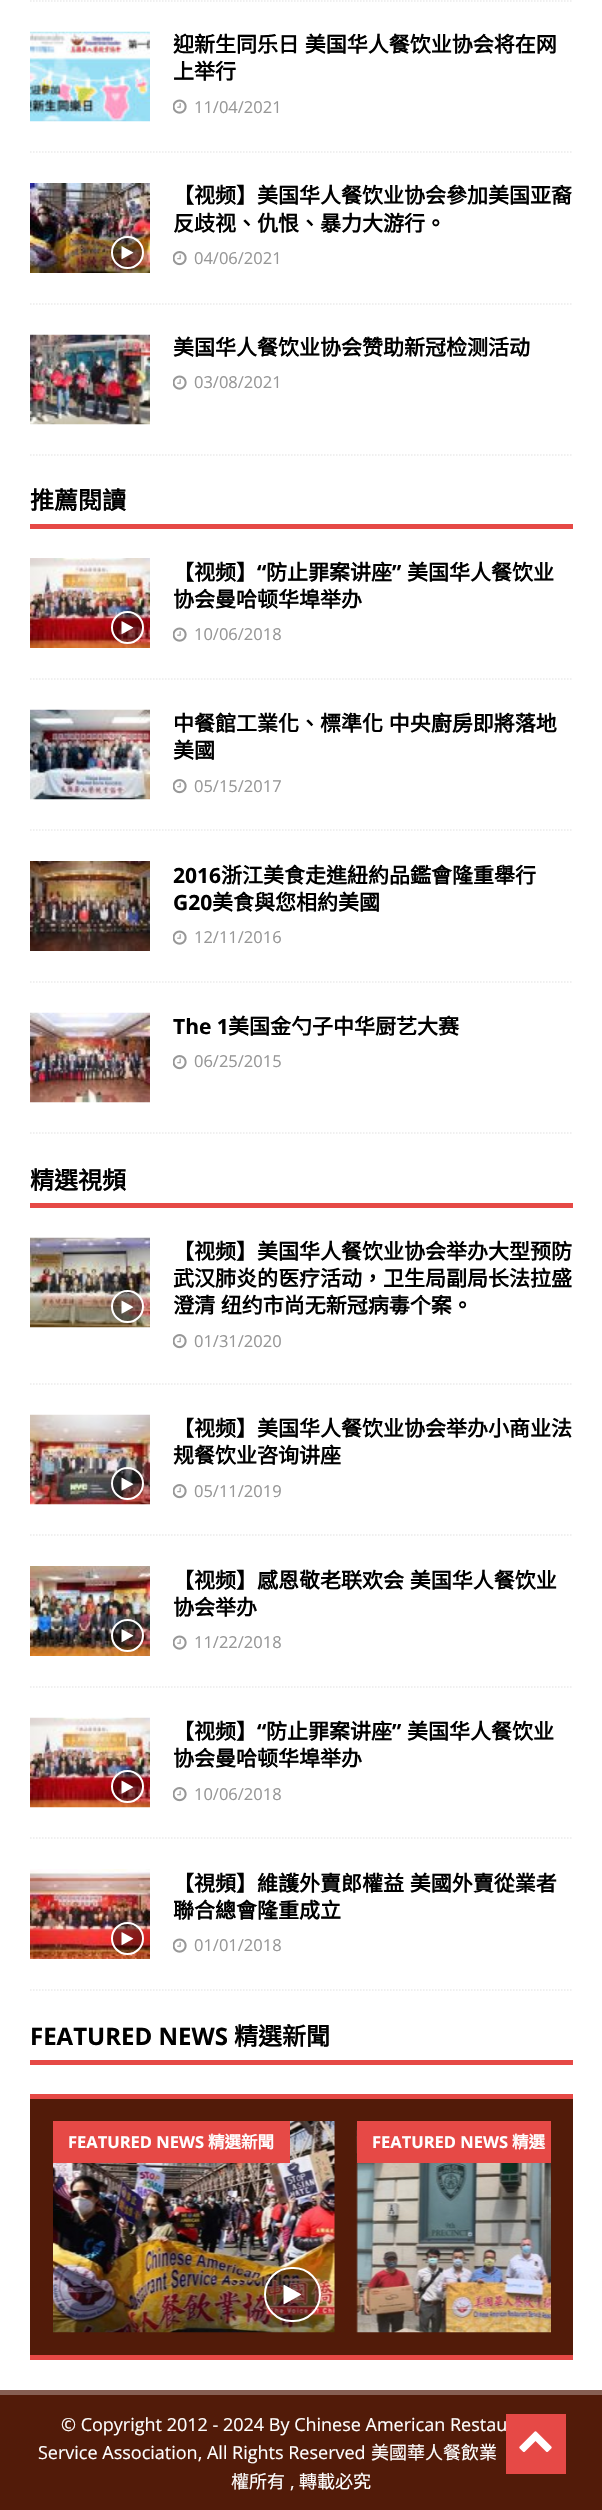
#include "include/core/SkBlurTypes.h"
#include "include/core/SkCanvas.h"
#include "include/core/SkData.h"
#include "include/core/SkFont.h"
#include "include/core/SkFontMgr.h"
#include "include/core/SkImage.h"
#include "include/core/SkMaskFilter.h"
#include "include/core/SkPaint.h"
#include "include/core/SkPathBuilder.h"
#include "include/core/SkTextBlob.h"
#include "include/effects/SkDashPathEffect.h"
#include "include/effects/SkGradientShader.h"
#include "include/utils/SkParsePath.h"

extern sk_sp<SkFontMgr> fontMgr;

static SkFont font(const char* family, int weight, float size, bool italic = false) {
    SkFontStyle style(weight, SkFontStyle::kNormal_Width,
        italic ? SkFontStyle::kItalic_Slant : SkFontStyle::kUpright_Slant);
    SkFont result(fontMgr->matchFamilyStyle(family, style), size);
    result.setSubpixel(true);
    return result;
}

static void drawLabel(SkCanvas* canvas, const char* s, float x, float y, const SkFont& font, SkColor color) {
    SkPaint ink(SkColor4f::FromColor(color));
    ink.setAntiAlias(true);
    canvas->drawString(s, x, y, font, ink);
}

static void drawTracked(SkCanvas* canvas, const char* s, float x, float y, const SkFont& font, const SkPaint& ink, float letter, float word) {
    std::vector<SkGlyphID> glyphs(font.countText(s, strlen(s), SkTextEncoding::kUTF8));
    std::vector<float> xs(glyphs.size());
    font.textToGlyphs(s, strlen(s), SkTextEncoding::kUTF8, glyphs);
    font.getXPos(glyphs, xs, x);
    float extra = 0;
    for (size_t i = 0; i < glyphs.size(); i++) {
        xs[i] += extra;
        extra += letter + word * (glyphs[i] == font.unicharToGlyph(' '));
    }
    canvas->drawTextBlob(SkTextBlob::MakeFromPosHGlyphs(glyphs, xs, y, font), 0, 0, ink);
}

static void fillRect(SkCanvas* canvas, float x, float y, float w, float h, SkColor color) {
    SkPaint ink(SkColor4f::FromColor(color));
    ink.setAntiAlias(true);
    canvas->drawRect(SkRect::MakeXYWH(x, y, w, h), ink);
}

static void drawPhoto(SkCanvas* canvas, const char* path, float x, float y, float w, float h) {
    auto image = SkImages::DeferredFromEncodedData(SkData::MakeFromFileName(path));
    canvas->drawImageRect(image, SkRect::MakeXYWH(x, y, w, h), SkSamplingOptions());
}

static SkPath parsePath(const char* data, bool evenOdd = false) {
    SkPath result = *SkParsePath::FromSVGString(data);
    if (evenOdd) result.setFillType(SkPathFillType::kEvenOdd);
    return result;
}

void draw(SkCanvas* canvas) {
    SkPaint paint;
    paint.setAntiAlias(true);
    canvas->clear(0xFFFFFFFF);
    paint.setStroke(true);
    paint.setStrokeWidth(1.5f);
    paint.setColor(0xFFEBEBEB);
    paint.setPathEffect(SkDashPathEffect::Make({{1.5f, 1.5f}}, 0));
    canvas->drawPath(parsePath("M30 1H573"), paint);
    paint.setPathEffect(nullptr);
    paint.setPathEffect(SkDashPathEffect::Make({{1.5f, 1.5f}}, 0));
    canvas->drawPath(parsePath("M30 152H573"), paint);
    paint.setPathEffect(nullptr);
    drawPhoto(canvas, "assets/img1.png", 30, 31, 120, 91);
    SkFont font1 = font("Noto Sans CJK TC", 700, 21);
    paint.setStroke(false);
    paint.setColor(0xFF000000);
    drawTracked(canvas, "迎新生同乐日 美国华人餐饮业协会将在网", 173, 52, font1, paint, 0, 1);
    drawLabel(canvas, "上举行", 173, 79, font1, 0xFF000000);
    drawPhoto(canvas, "assets/img2.png", 173, 99, 14, 15);
    SkFont font2 = font("Open Sans", 400, 16.5f);
    drawLabel(canvas, "11/04/2021", 194, 113, font2, 0xFF979797);
    paint.setStroke(true);
    paint.setColor(0xFFEBEBEB);
    paint.setPathEffect(SkDashPathEffect::Make({{1.5f, 1.5f}}, 0));
    canvas->drawPath(parsePath("M30 304H573"), paint);
    paint.setPathEffect(nullptr);
    drawPhoto(canvas, "assets/img3.png", 30, 183, 120, 90);
    paint.setStroke(false);
    paint.setColor(0x66000000);
    canvas->drawCircle(127.5f, 252.5f, 15.5f, paint);
    paint.setStroke(true);
    paint.setStrokeWidth(2);
    paint.setColor(0xFFFFFFFF);
    canvas->drawCircle(127.5f, 252.5f, 15.5f, paint);
    drawPhoto(canvas, "assets/img4.png", 121, 246, 13, 14);
    drawLabel(canvas, "【视频】美国华人餐饮业协会參加美国亚裔", 173, 203, font1, 0xFF000000);
    drawLabel(canvas, "反歧视、仇恨、暴力大游行。", 173, 231, font1, 0xFF000000);
    drawPhoto(canvas, "assets/img5.png", 173, 251, 14, 15);
    drawLabel(canvas, "04/06/2021", 194, 264, font2, 0xFF979797);
    paint.setStrokeWidth(1.5f);
    paint.setColor(0xFFEBEBEB);
    paint.setPathEffect(SkDashPathEffect::Make({{1.5f, 1.5f}}, 0));
    canvas->drawPath(parsePath("M30 455H573"), paint);
    paint.setPathEffect(nullptr);
    drawPhoto(canvas, "assets/img6.png", 30, 334, 120, 91);
    drawLabel(canvas, "美国华人餐饮业协会赞助新冠检测活动", 173, 355, font1, 0xFF000000);
    drawPhoto(canvas, "assets/img2.png", 173, 375, 14, 15);
    drawLabel(canvas, "03/08/2021", 194, 388, font2, 0xFF979797);
    fillRect(canvas, 30, 524, 543, 5, 0xFFE64946);
    SkFont font3 = font("Noto Sans CJK TC", 700, 24);
    drawLabel(canvas, "推薦閱讀", 30, 509, font3, 0xFF000000);
    paint.setPathEffect(SkDashPathEffect::Make({{1.5f, 1.5f}}, 0));
    canvas->drawPath(parsePath("M30 679H573"), paint);
    paint.setPathEffect(nullptr);
    drawPhoto(canvas, "assets/img7.png", 30, 558, 120, 90);
    paint.setStroke(false);
    paint.setColor(0x66000000);
    canvas->drawCircle(127.5f, 627.5f, 15.5f, paint);
    paint.setStroke(true);
    paint.setStrokeWidth(2);
    paint.setColor(0xFFFFFFFF);
    canvas->drawCircle(127.5f, 627.5f, 15.5f, paint);
    drawPhoto(canvas, "assets/img8.png", 121, 621, 13, 14);
    drawLabel(canvas, "【视频】", 173, 580, font1, 0xFF000000);
    SkFont font4 = font("Open Sans", 700, 21);
    drawLabel(canvas, "“", 257, 580, font4, 0xFF000000);
    drawLabel(canvas, "防止罪案讲座", 266, 580, font1, 0xFF000000);
    drawLabel(canvas, "”", 392, 580, font4, 0xFF000000);
    drawLabel(canvas, "美国华人餐饮业", 407, 580, font1, 0xFF000000);
    drawLabel(canvas, "协会曼哈顿华埠举办", 173, 607, font1, 0xFF000000);
    drawPhoto(canvas, "assets/img2.png", 173, 627, 14, 15);
    drawLabel(canvas, "10/06/2018", 194, 640, font2, 0xFF979797);
    paint.setStrokeWidth(1.5f);
    paint.setColor(0xFFEBEBEB);
    paint.setPathEffect(SkDashPathEffect::Make({{1.5f, 1.5f}}, 0));
    canvas->drawPath(parsePath("M30 830H573"), paint);
    paint.setPathEffect(nullptr);
    drawPhoto(canvas, "assets/img9.png", 30, 709, 120, 91);
    paint.setStroke(false);
    paint.setColor(0xFF000000);
    drawTracked(canvas, "中餐館工業化、標準化 中央廚房即將落地", 173, 731, font1, paint, 0, 1);
    drawLabel(canvas, "美國", 173, 758, font1, 0xFF000000);
    drawPhoto(canvas, "assets/img5.png", 173, 779, 14, 15);
    drawLabel(canvas, "05/15/2017", 194, 792, font2, 0xFF979797);
    paint.setStroke(true);
    paint.setColor(0xFFEBEBEB);
    paint.setPathEffect(SkDashPathEffect::Make({{1.5f, 1.5f}}, 0));
    canvas->drawPath(parsePath("M30 982H573"), paint);
    paint.setPathEffect(nullptr);
    drawPhoto(canvas, "assets/img10.png", 30, 861, 120, 90);
    drawLabel(canvas, "2016", 173, 883, font4, 0xFF000000);
    drawLabel(canvas, "浙江美食走進紐約品鑑會隆重舉行", 221, 883, font1, 0xFF000000);
    drawLabel(canvas, "G20", 173, 910, font4, 0xFF000000);
    drawLabel(canvas, "美食與您相約美國", 212, 910, font1, 0xFF000000);
    drawPhoto(canvas, "assets/img2.png", 173, 930, 14, 15);
    drawLabel(canvas, "12/11/2016", 194, 943, font2, 0xFF979797);
    paint.setPathEffect(SkDashPathEffect::Make({{1.5f, 1.5f}}, 0));
    canvas->drawPath(parsePath("M30 1133H573"), paint);
    paint.setPathEffect(nullptr);
    drawPhoto(canvas, "assets/img11.png", 30, 1012, 120, 91);
    drawLabel(canvas, "The 1", 173, 1034, font4, 0xFF000000);
    drawLabel(canvas, "美国金勺子中华厨艺大赛", 228, 1034, font1, 0xFF000000);
    drawPhoto(canvas, "assets/img5.png", 173, 1055, 14, 15);
    drawLabel(canvas, "06/25/2015", 194, 1067, font2, 0xFF979797);
    fillRect(canvas, 30, 1203, 543, 5, 0xFFE64946);
    drawLabel(canvas, "精選視頻", 30, 1189, font3, 0xFF000000);
    paint.setPathEffect(SkDashPathEffect::Make({{1.5f, 1.5f}}, 0));
    canvas->drawPath(parsePath("M30 1384H573"), paint);
    paint.setPathEffect(nullptr);
    drawPhoto(canvas, "assets/img12.png", 30, 1237, 120, 91);
    paint.setStroke(false);
    paint.setColor(0x66000000);
    canvas->drawCircle(127.5f, 1306.5f, 15.5f, paint);
    paint.setStroke(true);
    paint.setStrokeWidth(2);
    paint.setColor(0xFFFFFFFF);
    canvas->drawCircle(127.5f, 1306.5f, 15.5f, paint);
    drawPhoto(canvas, "assets/img13.png", 121, 1300, 13, 14);
    drawLabel(canvas, "【视频】美国华人餐饮业协会举办大型预防", 173, 1259, font1, 0xFF000000);
    drawLabel(canvas, "武汉肺炎的医疗活动，卫生局副局长法拉盛", 173, 1286, font1, 0xFF000000);
    paint.setStroke(false);
    paint.setColor(0xFF000000);
    drawTracked(canvas, "澄清 纽约市尚无新冠病毒个案。", 173, 1313, font1, paint, 0, 1);
    drawPhoto(canvas, "assets/img5.png", 173, 1334, 14, 15);
    drawLabel(canvas, "01/31/2020", 194, 1347, font2, 0xFF979797);
    paint.setStroke(true);
    paint.setStrokeWidth(1.5f);
    paint.setColor(0xFFEBEBEB);
    paint.setPathEffect(SkDashPathEffect::Make({{1.5f, 1.5f}}, 0));
    canvas->drawPath(parsePath("M30 1535H573"), paint);
    paint.setPathEffect(nullptr);
    drawPhoto(canvas, "assets/img14.png", 30, 1414, 120, 91);
    paint.setStroke(false);
    paint.setColor(0x66000000);
    canvas->drawCircle(127.5f, 1483.5f, 15.5f, paint);
    paint.setStroke(true);
    paint.setStrokeWidth(2);
    paint.setColor(0xFFFFFFFF);
    canvas->drawCircle(127.5f, 1483.5f, 15.5f, paint);
    drawPhoto(canvas, "assets/img15.png", 121, 1477, 13, 14);
    drawLabel(canvas, "【视频】美国华人餐饮业协会举办小商业法", 173, 1436, font1, 0xFF000000);
    drawLabel(canvas, "规餐饮业咨询讲座", 173, 1463, font1, 0xFF000000);
    drawPhoto(canvas, "assets/img5.png", 173, 1484, 14, 15);
    drawLabel(canvas, "05/11/2019", 194, 1497, font2, 0xFF979797);
    paint.setStrokeWidth(1.5f);
    paint.setColor(0xFFEBEBEB);
    paint.setPathEffect(SkDashPathEffect::Make({{1.5f, 1.5f}}, 0));
    canvas->drawPath(parsePath("M30 1687H573"), paint);
    paint.setPathEffect(nullptr);
    drawPhoto(canvas, "assets/img16.png", 30, 1566, 120, 90);
    paint.setStroke(false);
    paint.setColor(0x66000000);
    canvas->drawCircle(127.5f, 1635.5f, 15.5f, paint);
    paint.setStroke(true);
    paint.setStrokeWidth(2);
    paint.setColor(0xFFFFFFFF);
    canvas->drawCircle(127.5f, 1635.5f, 15.5f, paint);
    drawPhoto(canvas, "assets/img17.png", 121, 1629, 13, 14);
    paint.setStroke(false);
    paint.setColor(0xFF000000);
    drawTracked(canvas, "【视频】感恩敬老联欢会 美国华人餐饮业", 173, 1588, font1, paint, 0, 1);
    drawLabel(canvas, "协会举办", 173, 1615, font1, 0xFF000000);
    drawPhoto(canvas, "assets/img2.png", 173, 1635, 14, 15);
    drawLabel(canvas, "11/22/2018", 194, 1648, font2, 0xFF979797);
    paint.setStroke(true);
    paint.setStrokeWidth(1.5f);
    paint.setColor(0xFFEBEBEB);
    paint.setPathEffect(SkDashPathEffect::Make({{1.5f, 1.5f}}, 0));
    canvas->drawPath(parsePath("M30 1838H573"), paint);
    paint.setPathEffect(nullptr);
    drawPhoto(canvas, "assets/img18.png", 30, 1717, 120, 91);
    paint.setStroke(false);
    paint.setColor(0x66000000);
    canvas->drawCircle(127.5f, 1786.5f, 15.5f, paint);
    paint.setStroke(true);
    paint.setStrokeWidth(2);
    paint.setColor(0xFFFFFFFF);
    canvas->drawCircle(127.5f, 1786.5f, 15.5f, paint);
    drawPhoto(canvas, "assets/img19.png", 121, 1780, 13, 14);
    drawLabel(canvas, "【视频】", 173, 1739, font1, 0xFF000000);
    drawLabel(canvas, "“", 257, 1739, font4, 0xFF000000);
    drawLabel(canvas, "防止罪案讲座", 266, 1739, font1, 0xFF000000);
    drawLabel(canvas, "”", 392, 1739, font4, 0xFF000000);
    drawLabel(canvas, "美国华人餐饮业", 407, 1739, font1, 0xFF000000);
    drawLabel(canvas, "协会曼哈顿华埠举办", 173, 1766, font1, 0xFF000000);
    drawPhoto(canvas, "assets/img5.png", 173, 1787, 14, 15);
    drawLabel(canvas, "10/06/2018", 194, 1800, font2, 0xFF979797);
    paint.setStrokeWidth(1.5f);
    paint.setColor(0xFFEBEBEB);
    paint.setPathEffect(SkDashPathEffect::Make({{1.5f, 1.5f}}, 0));
    canvas->drawPath(parsePath("M30 1990H573"), paint);
    paint.setPathEffect(nullptr);
    drawPhoto(canvas, "assets/img20.png", 30, 1869, 120, 90);
    paint.setStroke(false);
    paint.setColor(0x66000000);
    canvas->drawCircle(127.5f, 1938.5f, 15.5f, paint);
    paint.setStroke(true);
    paint.setStrokeWidth(2);
    paint.setColor(0xFFFFFFFF);
    canvas->drawCircle(127.5f, 1938.5f, 15.5f, paint);
    drawPhoto(canvas, "assets/img21.png", 121, 1932, 13, 14);
    paint.setStroke(false);
    paint.setColor(0xFF000000);
    drawTracked(canvas, "【視頻】維護外賣郎權益 美國外賣從業者", 173, 1891, font1, paint, 0, 1);
    drawLabel(canvas, "聯合總會隆重成立", 173, 1918, font1, 0xFF000000);
    drawPhoto(canvas, "assets/img2.png", 173, 1938, 14, 15);
    drawLabel(canvas, "01/01/2018", 194, 1951, font2, 0xFF979797);
    fillRect(canvas, 30, 2060, 543, 5, 0xFFE64946);
    SkFont font5 = font("Open Sans", 700, 24);
    drawLabel(canvas, "FEATURED NEWS", 30, 2045, font5, 0xFF000000);
    drawLabel(canvas, "精選新聞", 234, 2045, font3, 0xFF000000);
    fillRect(canvas, 30, 2099, 543, 256, 0xFF521B09);
    fillRect(canvas, 30, 2094, 543, 5, 0xFFE64946);
    fillRect(canvas, 30, 2355, 543, 5, 0xFFE64946);
    drawPhoto(canvas, "assets/img22.png", 53, 2121, 282, 212);
    paint.setColor(0x66000000);
    canvas->drawRoundRect(SkRect::MakeXYWH(265, 2268, 55, 53), 26.5f, 26.5f, paint);
    paint.setStroke(true);
    paint.setColor(0xFFFFFFFF);
    canvas->drawRoundRect(SkRect::MakeXYWH(265, 2268, 55, 53), 26.5f, 26.5f, paint);
    drawPhoto(canvas, "assets/img23.png", 283, 2284, 19, 21);
    fillRect(canvas, 53, 2121, 237, 42, 0xFFE64946);
    SkFont font6 = font("Open Sans", 700, 16.5f);
    drawLabel(canvas, "FEATURED NEWS", 68, 2148, font6, 0xFFFFFFFF);
    SkFont font7 = font("Noto Sans CJK TC", 700, 16.5f);
    drawLabel(canvas, "精選新聞", 208, 2148, font7, 0xFFFFFFFF);
    drawPhoto(canvas, "assets/img24.png", 356, 2121, 195, 212);
    fillRect(canvas, 357, 2121, 194, 42, 0xFFE64946);
    drawLabel(canvas, "FEATURED NEWS", 372, 2148, font6, 0xFFFFFFFF);
    drawLabel(canvas, "精選", 512, 2148, font7, 0xFFFFFFFF);
    fillRect(canvas, 0, 2395, 602, 115, 0xFF521B09);
    fillRect(canvas, 0, 2390, 602, 5, 0xFF865F53);
    SkFont font8 = font("Open Sans", 400, 18);
    drawLabel(canvas, "© Copyright 2012 - 2024 By Chinese American Restau", 61, 2431, font8, 0xFFFFFFFF);
    drawLabel(canvas, "Service Association, All Rights Reserved", 38, 2459, font8, 0xFFFFFFFF);
    SkFont font9 = font("Noto Sans CJK TC", 400, 18);
    drawLabel(canvas, "美國華人餐飲業", 371, 2459, font9, 0xFFFFFFFF);
    drawLabel(canvas, "權所有", 231, 2488, font9, 0xFFFFFFFF);
    drawLabel(canvas, ",", 290, 2488, font8, 0xFFFFFFFF);
    drawLabel(canvas, "轉載必究", 299, 2488, font9, 0xFFFFFFFF);
    fillRect(canvas, 506, 2414, 60, 60, 0xFFE64946);
    drawPhoto(canvas, "assets/img25.png", 519, 2431, 33, 21);
}
